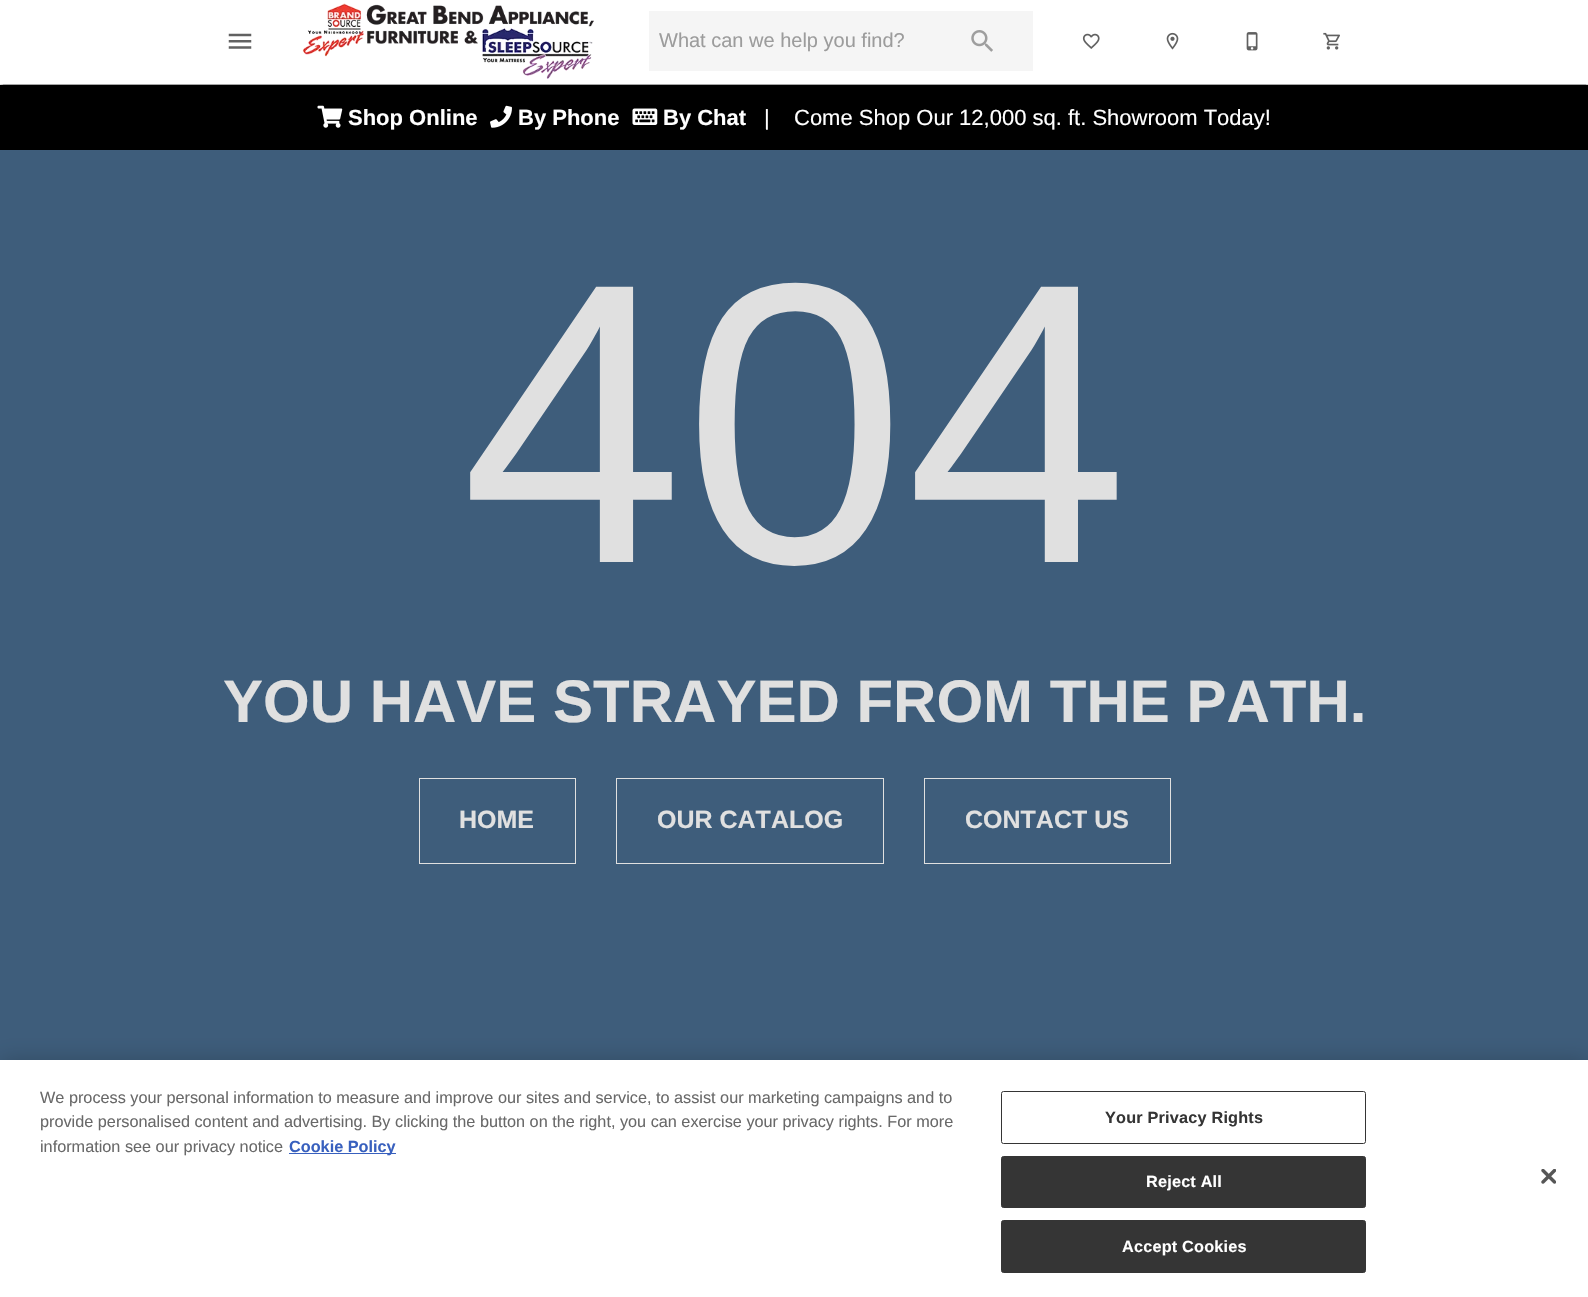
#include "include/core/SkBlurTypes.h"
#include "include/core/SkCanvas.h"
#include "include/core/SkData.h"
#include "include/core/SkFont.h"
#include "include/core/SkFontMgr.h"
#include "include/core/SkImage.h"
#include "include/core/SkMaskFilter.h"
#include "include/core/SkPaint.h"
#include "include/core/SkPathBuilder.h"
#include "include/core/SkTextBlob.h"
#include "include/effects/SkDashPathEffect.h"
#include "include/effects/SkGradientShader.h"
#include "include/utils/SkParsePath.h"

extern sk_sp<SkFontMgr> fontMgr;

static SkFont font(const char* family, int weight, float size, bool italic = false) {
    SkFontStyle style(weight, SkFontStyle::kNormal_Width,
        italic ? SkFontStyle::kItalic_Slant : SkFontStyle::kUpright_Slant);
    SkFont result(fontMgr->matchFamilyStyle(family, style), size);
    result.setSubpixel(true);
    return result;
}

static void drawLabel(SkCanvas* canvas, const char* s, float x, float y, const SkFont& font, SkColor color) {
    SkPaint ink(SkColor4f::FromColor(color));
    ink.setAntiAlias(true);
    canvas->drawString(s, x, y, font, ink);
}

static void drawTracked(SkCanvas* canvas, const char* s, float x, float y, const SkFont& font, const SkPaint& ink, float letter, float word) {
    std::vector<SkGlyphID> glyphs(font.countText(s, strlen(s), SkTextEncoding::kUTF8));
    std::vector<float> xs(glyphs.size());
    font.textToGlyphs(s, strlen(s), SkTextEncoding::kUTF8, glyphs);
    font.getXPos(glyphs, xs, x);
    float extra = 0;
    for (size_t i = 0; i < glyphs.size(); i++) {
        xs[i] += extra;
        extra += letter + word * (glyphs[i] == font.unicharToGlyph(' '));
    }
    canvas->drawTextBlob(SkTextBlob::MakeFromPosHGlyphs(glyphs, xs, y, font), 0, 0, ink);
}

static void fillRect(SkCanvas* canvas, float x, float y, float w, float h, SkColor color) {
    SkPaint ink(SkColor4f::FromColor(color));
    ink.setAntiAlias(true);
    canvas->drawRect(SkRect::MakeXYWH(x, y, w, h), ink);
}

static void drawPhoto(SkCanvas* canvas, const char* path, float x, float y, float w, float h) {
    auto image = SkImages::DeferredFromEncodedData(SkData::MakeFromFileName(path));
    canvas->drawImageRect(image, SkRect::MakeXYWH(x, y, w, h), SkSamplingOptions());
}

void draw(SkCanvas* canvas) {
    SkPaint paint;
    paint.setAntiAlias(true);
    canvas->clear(0xFFFFFFFF);
    fillRect(canvas, 0, 85, 1588, 65, 0xFF000000);
    paint.setColor(0x1F000000);
    paint.setMaskFilter(SkMaskFilter::MakeBlur(kNormal_SkBlurStyle, 3));
    canvas->drawRect(SkRect::MakeXYWH(0, 0, 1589, 85), paint);
    paint.setMaskFilter(nullptr);
    paint.setColor(0x24000000);
    paint.setMaskFilter(SkMaskFilter::MakeBlur(kNormal_SkBlurStyle, 1));
    canvas->drawRect(SkRect::MakeXYWH(0, 1, 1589, 85), paint);
    paint.setMaskFilter(nullptr);
    paint.setColor(0x33000000);
    paint.setMaskFilter(SkMaskFilter::MakeBlur(kNormal_SkBlurStyle, 0.5f));
    canvas->drawRect(SkRect::MakeXYWH(3, 5, 1583, 80), paint);
    paint.setMaskFilter(nullptr);
    fillRect(canvas, 0, 0, 1588, 84, 0xFFFFFFFF);
    drawPhoto(canvas, "assets/img1.png", 228, 33, 24, 16);
    drawPhoto(canvas, "assets/img2.png", 302, 3, 292, 76);
    fillRect(canvas, 649, 11, 384, 60, 0xFFF5F5F5);
    SkFont font1 = font("Liberation Sans", 400, 20);
    drawLabel(canvas, "What can we help you find?", 659, 47, font1, 0xFF9C9C9C);
    drawPhoto(canvas, "assets/img3.png", 971, 30, 22, 22);
    drawPhoto(canvas, "assets/img4.png", 1082, 33, 18, 16);
    drawPhoto(canvas, "assets/img5.png", 1166, 32, 13, 18);
    drawPhoto(canvas, "assets/img6.png", 1246, 32, 12, 19);
    drawPhoto(canvas, "assets/img7.png", 1323, 32, 17, 18);
    drawPhoto(canvas, "assets/img8.png", 317, 105, 26, 23);
    SkFont font2 = font("Liberation Sans", 700, 22);
    drawLabel(canvas, "Shop Online", 348, 125, font2, 0xFFFFFFFF);
    drawPhoto(canvas, "assets/img9.png", 490, 105, 22, 23);
    drawLabel(canvas, "By Phone", 518, 125, font2, 0xFFFFFFFF);
    drawPhoto(canvas, "assets/img10.png", 632, 108, 26, 17);
    drawLabel(canvas, "By Chat", 663, 125, font2, 0xFFFFFFFF);
    SkFont font3 = font("Liberation Sans", 400, 22);
    drawLabel(canvas, "|", 764, 125, font3, 0xFFFFFFFF);
    drawLabel(canvas, "Come Shop Our 12,000 sq. ft. Showroom Today!", 794, 125, font3, 0xFFFFFFFF);
    fillRect(canvas, 0, 150, 1588, 910, 0xFF3E5D7B);
    SkFont font4 = font("Liberation Sans", 400, 400);
    drawLabel(canvas, "404", 461, 562, font4, 0xFFE0E0E0);
    SkFont font5 = font("Liberation Sans", 700, 60);
    drawLabel(canvas, "YOU HAVE STRAYED FROM THE PATH.", 223, 722, font5, 0xFFE0E0E0);
    paint.setStroke(true);
    paint.setStrokeWidth(1);
    paint.setColor(0xFFE0E0E0);
    canvas->drawRect(SkRect::MakeXYWH(419.5f, 778.5f, 156, 85), paint);
    SkFont font6 = font("Liberation Sans", 700, 25);
    drawLabel(canvas, "HOME", 459, 828, font6, 0xFFE0E0E0);
    canvas->drawRect(SkRect::MakeXYWH(616.5f, 778.5f, 267, 85), paint);
    drawLabel(canvas, "OUR CATALOG", 657, 828, font6, 0xFFE0E0E0);
    canvas->drawRect(SkRect::MakeXYWH(924.5f, 778.5f, 246, 85), paint);
    drawLabel(canvas, "CONTACT US", 965, 828, font6, 0xFFE0E0E0);
    paint.setStroke(false);
    paint.setColor(0x33000000);
    paint.setMaskFilter(SkMaskFilter::MakeBlur(kNormal_SkBlurStyle, 11));
    canvas->drawRect(SkRect::MakeXYWH(0, 1060, 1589, 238), paint);
    paint.setMaskFilter(nullptr);
    fillRect(canvas, 0, 1060, 1588, 237, 0xFFFFFFFF);
    SkFont font7 = font("Liberation Sans", 400, 16.25f);
    drawLabel(canvas, "We process your personal information to measure and improve our sites and service, to assist our marketing campaigns and to", 40, 1103, font7, 0xFF696969);
    drawLabel(canvas, "provide personalised content and advertising. By clicking the button on the right, you can exercise your privacy rights. For more", 40, 1127, font7, 0xFF696969);
    drawLabel(canvas, "information see our privacy notice", 40, 1152, font7, 0xFF696969);
    fillRect(canvas, 289, 1153, 107, 1, 0xFF3860BE);
    SkFont font8 = font("Liberation Sans", 700, 16.25f);
    drawLabel(canvas, "Cookie Policy", 289, 1152, font8, 0xFF3860BE);
    paint.setStroke(true);
    paint.setColor(0xFF353535);
    canvas->drawRoundRect(SkRect::MakeXYWH(1001.5f, 1091.5f, 364, 52), 2, 2, paint);
    paint.setStroke(false);
    drawTracked(canvas, "Your Privacy Rights", 1105, 1123, font8, paint, 0.2f, 0);
    canvas->drawRoundRect(SkRect::MakeXYWH(1001.5f, 1156.5f, 364, 51), 2, 2, paint);
    paint.setStroke(true);
    canvas->drawRoundRect(SkRect::MakeXYWH(1001.5f, 1156.5f, 364, 51), 2, 2, paint);
    paint.setStroke(false);
    paint.setColor(0xFFFFFFFF);
    drawTracked(canvas, "Reject All", 1146, 1187, font8, paint, 0.2f, 0);
    paint.setColor(0xFF353535);
    canvas->drawRoundRect(SkRect::MakeXYWH(1001.5f, 1220.5f, 364, 52), 2, 2, paint);
    paint.setStroke(true);
    canvas->drawRoundRect(SkRect::MakeXYWH(1001.5f, 1220.5f, 364, 52), 2, 2, paint);
    paint.setStroke(false);
    paint.setColor(0xFFFFFFFF);
    drawTracked(canvas, "Accept Cookies", 1122, 1252, font8, paint, 0.2f, 0);
    drawPhoto(canvas, "assets/img11.png", 1541, 1169, 15, 15);
}
